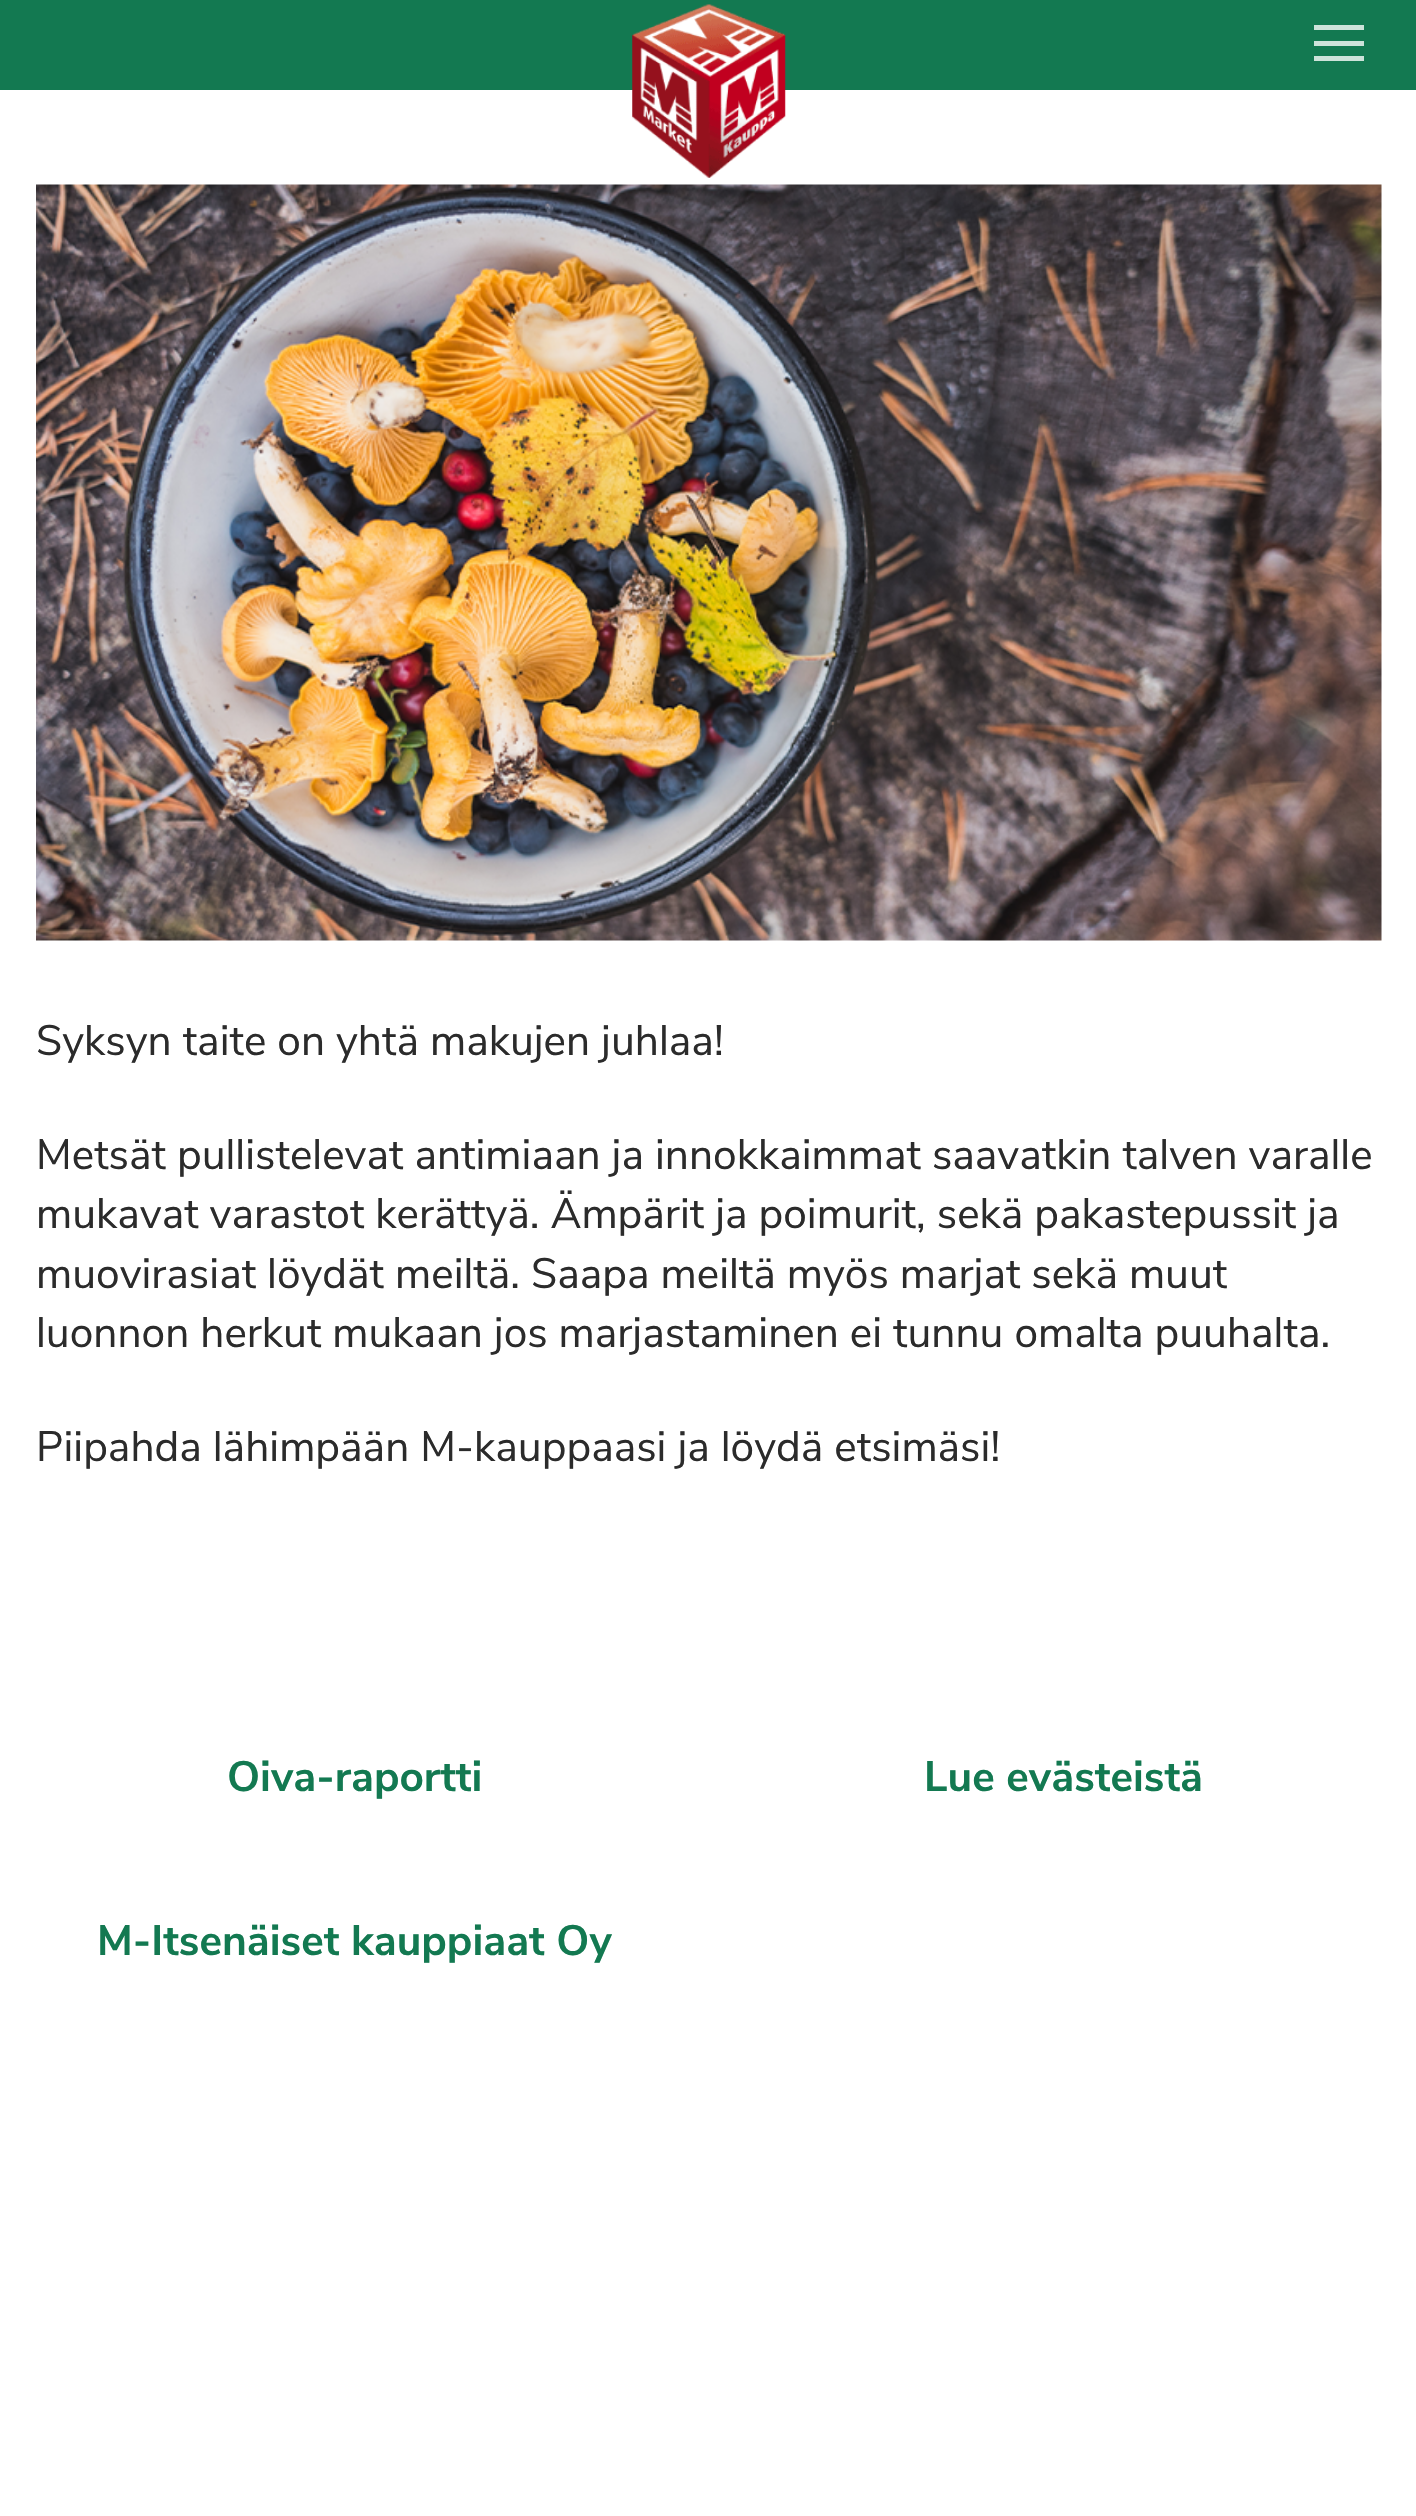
#include "include/core/SkBlurTypes.h"
#include "include/core/SkCanvas.h"
#include "include/core/SkData.h"
#include "include/core/SkFont.h"
#include "include/core/SkFontMgr.h"
#include "include/core/SkImage.h"
#include "include/core/SkMaskFilter.h"
#include "include/core/SkPaint.h"
#include "include/core/SkPathBuilder.h"
#include "include/core/SkTextBlob.h"
#include "include/effects/SkDashPathEffect.h"
#include "include/effects/SkGradientShader.h"
#include "include/utils/SkParsePath.h"

extern sk_sp<SkFontMgr> fontMgr;

static SkFont font(const char* family, int weight, float size, bool italic = false) {
    SkFontStyle style(weight, SkFontStyle::kNormal_Width,
        italic ? SkFontStyle::kItalic_Slant : SkFontStyle::kUpright_Slant);
    SkFont result(fontMgr->matchFamilyStyle(family, style), size);
    result.setSubpixel(true);
    return result;
}

static void drawLabel(SkCanvas* canvas, const char* s, float x, float y, const SkFont& font, SkColor color) {
    SkPaint ink(SkColor4f::FromColor(color));
    ink.setAntiAlias(true);
    canvas->drawString(s, x, y, font, ink);
}

static void fillRect(SkCanvas* canvas, float x, float y, float w, float h, SkColor color) {
    SkPaint ink(SkColor4f::FromColor(color));
    ink.setAntiAlias(true);
    canvas->drawRect(SkRect::MakeXYWH(x, y, w, h), ink);
}

static void drawPhoto(SkCanvas* canvas, const char* path, float x, float y, float w, float h) {
    auto image = SkImages::DeferredFromEncodedData(SkData::MakeFromFileName(path));
    canvas->drawImageRect(image, SkRect::MakeXYWH(x, y, w, h), SkSamplingOptions());
}

void draw(SkCanvas* canvas) {
    SkPaint paint;
    paint.setAntiAlias(true);
    canvas->clear(0xFFFFFFFF);
    fillRect(canvas, 0, 0, 1416, 90, 0xFF137951);
    drawPhoto(canvas, "assets/img1.png", 632, 4, 154, 174);
    fillRect(canvas, 1314, 41, 50, 5, 0xFFCDE3DA);
    fillRect(canvas, 1314, 25, 50, 5, 0xFFCDE3DA);
    fillRect(canvas, 1314, 56, 50, 5, 0xFFCDE3DA);
    drawPhoto(canvas, "assets/img2.png", 36, 184, 1346, 757);
    SkFont font1 = font("Nunito Sans", 400, 42.5f);
    drawLabel(canvas, "Syksyn taite on yhtä makujen juhlaa!", 36, 1055, font1, 0xFF2B2B2B);
    drawLabel(canvas, "Metsät pullistelevat antimiaan ja innokkaimmat saavatkin talven varalle", 36, 1169, font1, 0xFF2B2B2B);
    drawLabel(canvas, "mukavat varastot kerättyä. Ämpärit ja poimurit, sekä pakastepussit ja", 36, 1228, font1, 0xFF2B2B2B);
    drawLabel(canvas, "muovirasiat löydät meiltä. Saapa meiltä myös marjat sekä muut", 36, 1288, font1, 0xFF2B2B2B);
    drawLabel(canvas, "luonnon herkut mukaan jos marjastaminen ei tunnu omalta puuhalta.", 36, 1347, font1, 0xFF2B2B2B);
    drawLabel(canvas, "Piipahda lähimpään M-kauppaasi ja löydä etsimäsi!", 36, 1461, font1, 0xFF2B2B2B);
    SkFont font2 = font("Nunito Sans", 700, 42.5f);
    drawLabel(canvas, "Oiva-raportti", 227, 1791, font2, 0xFF137951);
    drawLabel(canvas, "Lue evästeistä", 924, 1791, font2, 0xFF137951);
    drawLabel(canvas, "M-Itsenäiset kauppiaat Oy", 97, 1955, font2, 0xFF137951);
}
